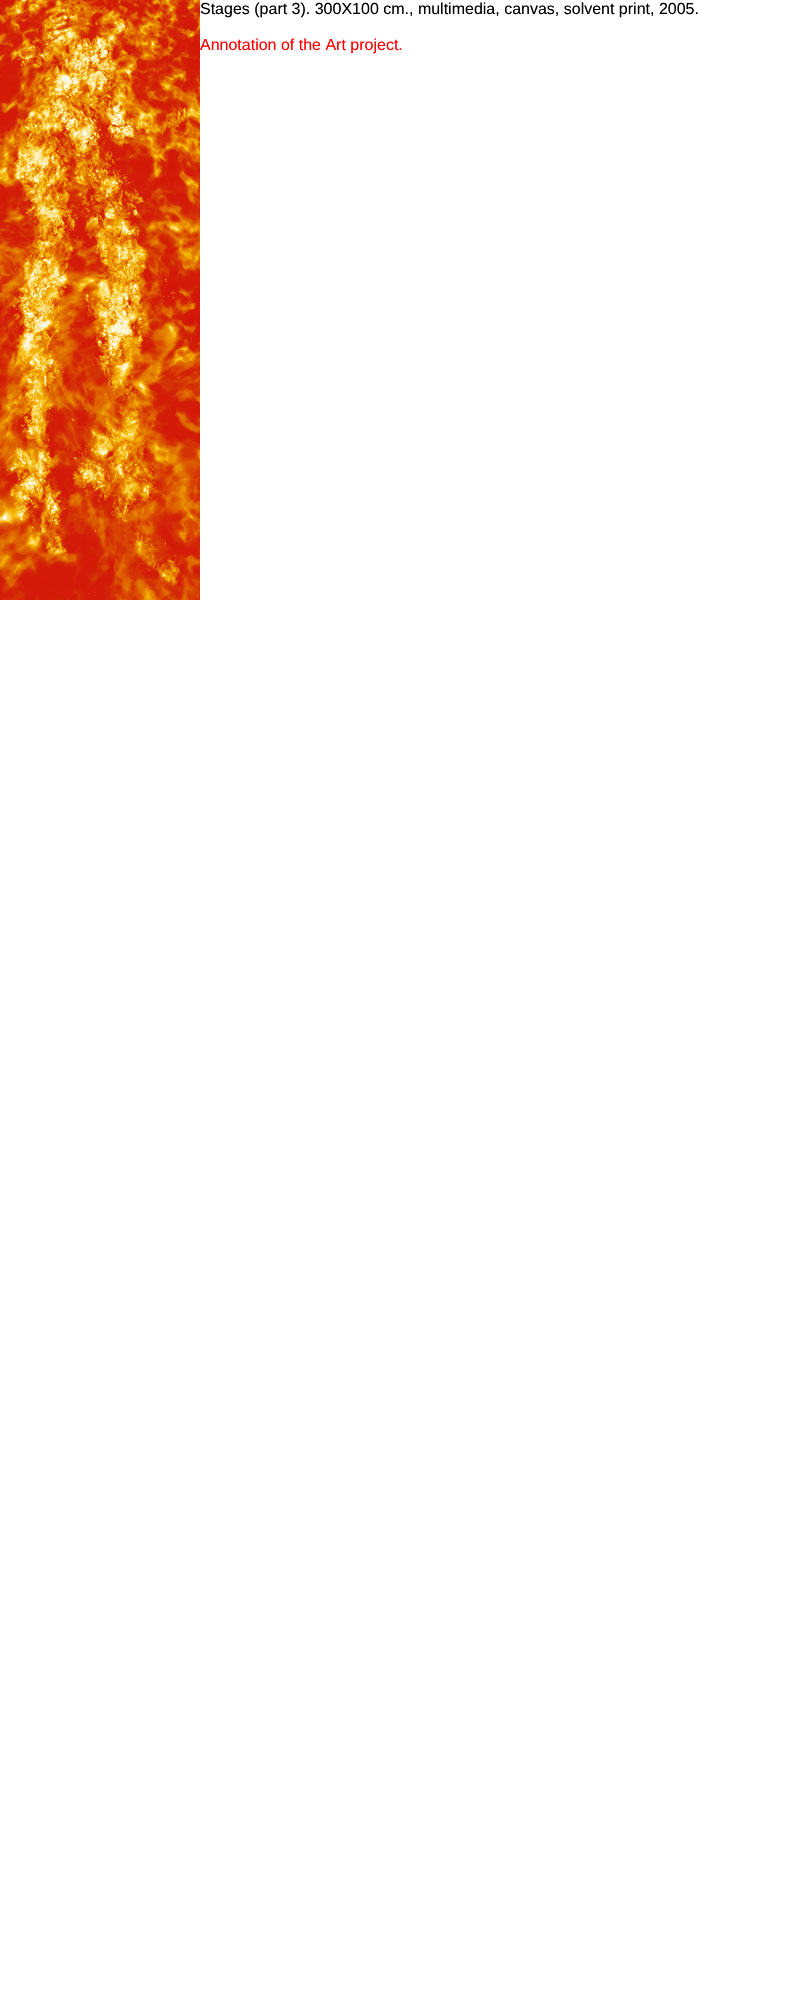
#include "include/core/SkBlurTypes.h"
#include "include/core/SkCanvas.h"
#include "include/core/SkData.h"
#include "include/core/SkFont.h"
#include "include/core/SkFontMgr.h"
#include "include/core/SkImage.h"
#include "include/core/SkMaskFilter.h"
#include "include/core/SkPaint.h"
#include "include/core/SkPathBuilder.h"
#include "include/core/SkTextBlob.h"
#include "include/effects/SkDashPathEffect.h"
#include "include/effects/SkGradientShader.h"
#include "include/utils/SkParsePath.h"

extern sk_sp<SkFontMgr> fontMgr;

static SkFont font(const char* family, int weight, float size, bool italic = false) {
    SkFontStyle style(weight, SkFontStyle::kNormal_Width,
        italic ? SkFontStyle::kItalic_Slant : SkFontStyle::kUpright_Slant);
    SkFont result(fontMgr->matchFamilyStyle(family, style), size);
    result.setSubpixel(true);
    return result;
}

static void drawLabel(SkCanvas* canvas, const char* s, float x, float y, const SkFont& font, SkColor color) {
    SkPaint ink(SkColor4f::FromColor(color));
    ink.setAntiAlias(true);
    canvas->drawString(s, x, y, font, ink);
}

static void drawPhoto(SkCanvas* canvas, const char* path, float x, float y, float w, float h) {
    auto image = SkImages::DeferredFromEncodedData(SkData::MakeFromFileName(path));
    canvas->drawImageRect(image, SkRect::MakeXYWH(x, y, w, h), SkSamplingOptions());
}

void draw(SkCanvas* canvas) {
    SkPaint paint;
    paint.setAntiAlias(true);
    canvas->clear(0xFFFFFFFF);
    drawPhoto(canvas, "assets/img1.png", 0, 0, 200, 600);
    SkFont font1 = font("Liberation Sans", 400, 16);
    drawLabel(canvas, "Stages (part 3). 300X100 cm., multimedia, canvas, solvent print, 2005.", 200, 14, font1, 0xFF000000);
    drawLabel(canvas, "Annotation of the Art project.", 200, 50, font1, 0xFFFF0000);
}
